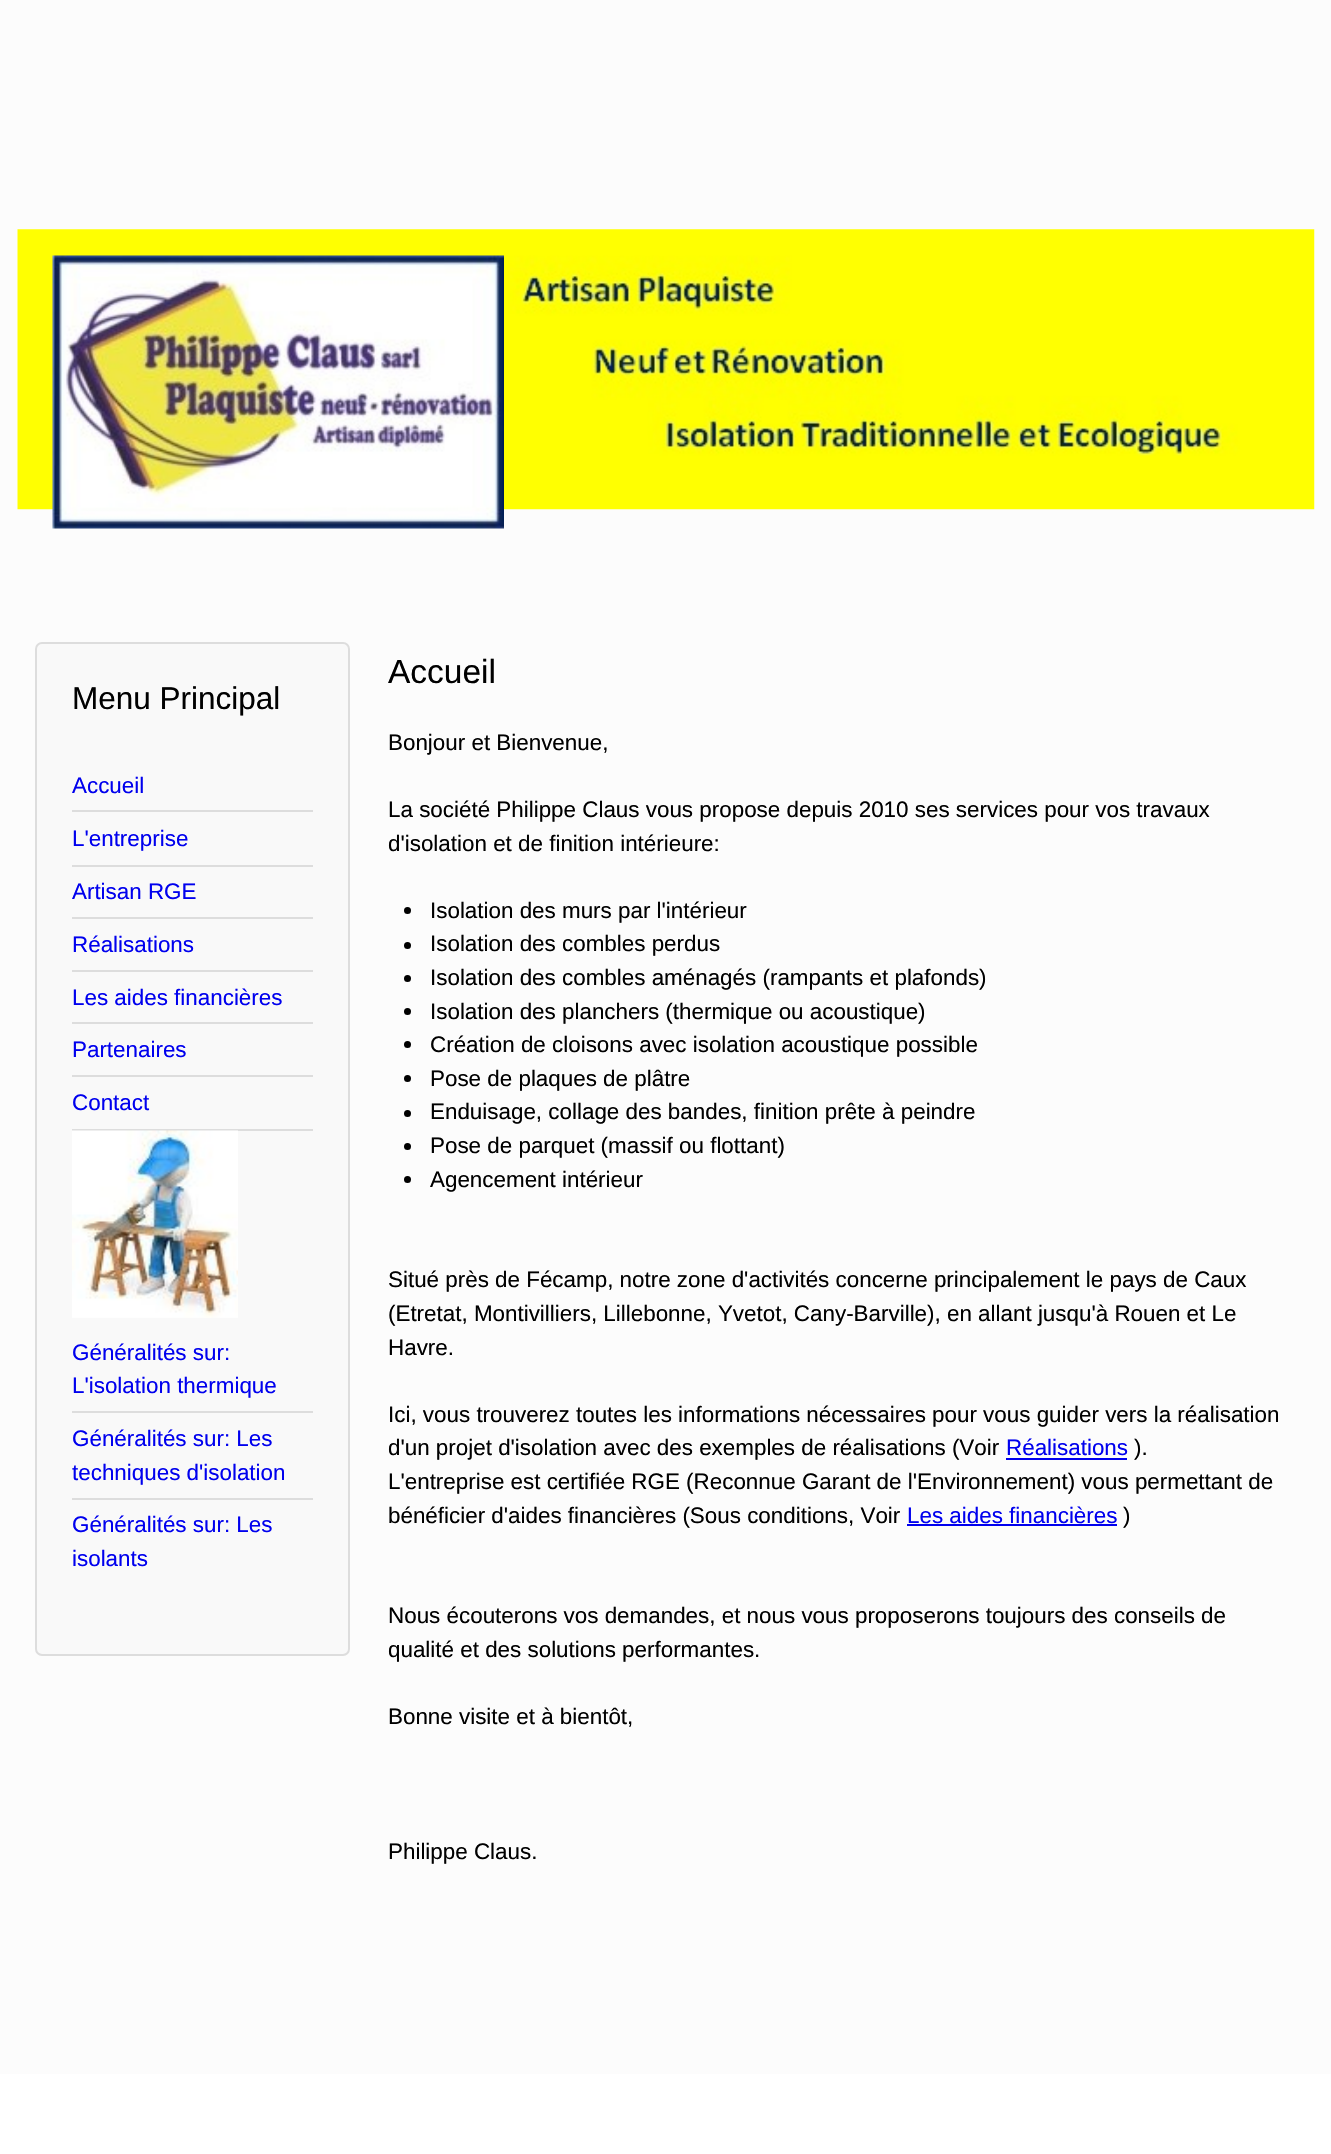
#include "include/core/SkBlurTypes.h"
#include "include/core/SkCanvas.h"
#include "include/core/SkData.h"
#include "include/core/SkFont.h"
#include "include/core/SkFontMgr.h"
#include "include/core/SkImage.h"
#include "include/core/SkMaskFilter.h"
#include "include/core/SkPaint.h"
#include "include/core/SkPathBuilder.h"
#include "include/core/SkTextBlob.h"
#include "include/effects/SkDashPathEffect.h"
#include "include/effects/SkGradientShader.h"
#include "include/utils/SkParsePath.h"

extern sk_sp<SkFontMgr> fontMgr;

static SkFont font(const char* family, int weight, float size, bool italic = false) {
    SkFontStyle style(weight, SkFontStyle::kNormal_Width,
        italic ? SkFontStyle::kItalic_Slant : SkFontStyle::kUpright_Slant);
    SkFont result(fontMgr->matchFamilyStyle(family, style), size);
    result.setSubpixel(true);
    return result;
}

static void drawLabel(SkCanvas* canvas, const char* s, float x, float y, const SkFont& font, SkColor color) {
    SkPaint ink(SkColor4f::FromColor(color));
    ink.setAntiAlias(true);
    canvas->drawString(s, x, y, font, ink);
}

static void fillRect(SkCanvas* canvas, float x, float y, float w, float h, SkColor color) {
    SkPaint ink(SkColor4f::FromColor(color));
    ink.setAntiAlias(true);
    canvas->drawRect(SkRect::MakeXYWH(x, y, w, h), ink);
}

static void drawPhoto(SkCanvas* canvas, const char* path, float x, float y, float w, float h) {
    auto image = SkImages::DeferredFromEncodedData(SkData::MakeFromFileName(path));
    canvas->drawImageRect(image, SkRect::MakeXYWH(x, y, w, h), SkSamplingOptions());
}

void draw(SkCanvas* canvas) {
    SkPaint paint;
    paint.setAntiAlias(true);
    canvas->clear(0xFFFFFFFF);
    fillRect(canvas, 0, 0, 1331, 2074, 0xFFFCFCFC);
    drawPhoto(canvas, "assets/img1.png", 17, 229, 1298, 281);
    drawPhoto(canvas, "assets/img2.png", 52, 255, 452, 274);
    paint.setColor(0xFFF9F9F9);
    canvas->drawRoundRect(SkRect::MakeXYWH(36, 643, 313, 1012), 6, 6, paint);
    paint.setStroke(true);
    paint.setStrokeWidth(2);
    paint.setColor(0xFFDDDDDD);
    canvas->drawRoundRect(SkRect::MakeXYWH(36, 643, 313, 1012), 6, 6, paint);
    SkFont font1 = font("Liberation Sans", 400, 31.5f);
    drawLabel(canvas, "Menu Principal", 72, 709, font1, 0xFF000000);
    fillRect(canvas, 72, 810, 241, 2, 0xFFDDDDDD);
    SkFont font2 = font("Liberation Sans", 400, 22.4f);
    drawLabel(canvas, "Accueil", 72, 793, font2, 0xFF0000EE);
    fillRect(canvas, 72, 865, 241, 2, 0xFFDDDDDD);
    drawLabel(canvas, "L'entreprise", 72, 846, font2, 0xFF0000EE);
    fillRect(canvas, 72, 917, 241, 2, 0xFFDDDDDD);
    drawLabel(canvas, "Artisan RGE", 72, 899, font2, 0xFF0000EE);
    fillRect(canvas, 72, 970, 241, 2, 0xFFDDDDDD);
    drawLabel(canvas, "Réalisations", 72, 952, font2, 0xFF0000EE);
    fillRect(canvas, 72, 1022, 241, 2, 0xFFDDDDDD);
    drawLabel(canvas, "Les aides financières", 72, 1005, font2, 0xFF0000EE);
    fillRect(canvas, 72, 1075, 241, 2, 0xFFDDDDDD);
    drawLabel(canvas, "Partenaires", 72, 1057, font2, 0xFF0000EE);
    fillRect(canvas, 72, 1129, 241, 2, 0xFFDDDDDD);
    drawLabel(canvas, "Contact", 72, 1110, font2, 0xFF0000EE);
    drawPhoto(canvas, "assets/img3.png", 72, 1130, 166, 188);
    fillRect(canvas, 72, 1411, 241, 2, 0xFFDDDDDD);
    drawLabel(canvas, "Généralités sur:", 72, 1360, font2, 0xFF0000EE);
    drawLabel(canvas, "L'isolation thermique", 72, 1393, font2, 0xFF0000EE);
    fillRect(canvas, 72, 1498, 241, 2, 0xFFDDDDDD);
    drawLabel(canvas, "Généralités sur: Les", 72, 1446, font2, 0xFF0000EE);
    drawLabel(canvas, "techniques d'isolation", 72, 1480, font2, 0xFF0000EE);
    drawLabel(canvas, "Généralités sur: Les", 72, 1532, font2, 0xFF0000EE);
    drawLabel(canvas, "isolants", 72, 1566, font2, 0xFF0000EE);
    SkFont font3 = font("Liberation Sans", 400, 33.5f);
    drawLabel(canvas, "Accueil", 388, 683, font3, 0xFF000000);
    drawLabel(canvas, "Bonjour et Bienvenue,", 388, 750, font2, 0xFF000000);
    drawLabel(canvas, "La société Philippe Claus vous propose depuis 2010 ses services pour vos travaux", 388, 817, font2, 0xFF000000);
    drawLabel(canvas, "d'isolation et de finition intérieure:", 388, 851, font2, 0xFF000000);
    paint.setStroke(false);
    paint.setColor(0xFF000000);
    canvas->drawCircle(407.5f, 910.5f, 3.5f, paint);
    drawLabel(canvas, "Isolation des murs par l'intérieur", 430, 918, font2, 0xFF000000);
    canvas->drawCircle(407.5f, 945.5f, 3.5f, paint);
    drawLabel(canvas, "Isolation des combles perdus", 430, 951, font2, 0xFF000000);
    canvas->drawCircle(407.5f, 978.5f, 3.5f, paint);
    drawLabel(canvas, "Isolation des combles aménagés (rampants et plafonds)", 430, 985, font2, 0xFF000000);
    canvas->drawCircle(407.5f, 1011.5f, 3.5f, paint);
    drawLabel(canvas, "Isolation des planchers (thermique ou acoustique)", 430, 1019, font2, 0xFF000000);
    canvas->drawCircle(407.5f, 1044.5f, 3.5f, paint);
    drawLabel(canvas, "Création de cloisons avec isolation acoustique possible", 430, 1052, font2, 0xFF000000);
    canvas->drawCircle(407.5f, 1078.5f, 3.5f, paint);
    drawLabel(canvas, "Pose de plaques de plâtre", 430, 1086, font2, 0xFF000000);
    canvas->drawCircle(407.5f, 1113.5f, 3.5f, paint);
    drawLabel(canvas, "Enduisage, collage des bandes, finition prête à peindre", 430, 1119, font2, 0xFF000000);
    canvas->drawCircle(407.5f, 1146.5f, 3.5f, paint);
    drawLabel(canvas, "Pose de parquet (massif ou flottant)", 430, 1153, font2, 0xFF000000);
    canvas->drawCircle(407.5f, 1179.5f, 3.5f, paint);
    drawLabel(canvas, "Agencement intérieur", 430, 1187, font2, 0xFF000000);
    drawLabel(canvas, "Situé près de Fécamp, notre zone d'activités concerne principalement le pays de Caux", 388, 1287, font2, 0xFF000000);
    drawLabel(canvas, "(Etretat, Montivilliers, Lillebonne, Yvetot, Cany-Barville), en allant jusqu'à Rouen et Le", 388, 1321, font2, 0xFF000000);
    drawLabel(canvas, "Havre.", 388, 1355, font2, 0xFF000000);
    drawLabel(canvas, "Ici, vous trouverez toutes les informations nécessaires pour vous guider vers la réalisation", 388, 1422, font2, 0xFF000000);
    drawLabel(canvas, "d'un projet d'isolation avec des exemples de réalisations (Voir", 388, 1455, font2, 0xFF000000);
    drawLabel(canvas, "Réalisations", 1006, 1455, font2, 0xFF0000EE);
    fillRect(canvas, 1006, 1458, 121, 2, 0xFF0000EE);
    drawLabel(canvas, ").", 1134, 1455, font2, 0xFF000000);
    drawLabel(canvas, "L'entreprise est certifiée RGE (Reconnue Garant de l'Environnement) vous permettant de", 388, 1489, font2, 0xFF000000);
    drawLabel(canvas, "bénéficier d'aides financières (Sous conditions, Voir", 388, 1523, font2, 0xFF000000);
    drawLabel(canvas, "Les aides financières", 907, 1523, font2, 0xFF0000EE);
    fillRect(canvas, 907, 1524, 210, 2, 0xFF0000EE);
    drawLabel(canvas, ")", 1123, 1523, font2, 0xFF000000);
    drawLabel(canvas, "Nous écouterons vos demandes, et nous vous proposerons toujours des conseils de", 388, 1623, font2, 0xFF000000);
    drawLabel(canvas, "qualité et des solutions performantes.", 388, 1657, font2, 0xFF000000);
    drawLabel(canvas, "Bonne visite et à bientôt,", 388, 1724, font2, 0xFF000000);
    drawLabel(canvas, "Philippe Claus.", 388, 1859, font2, 0xFF000000);
}
